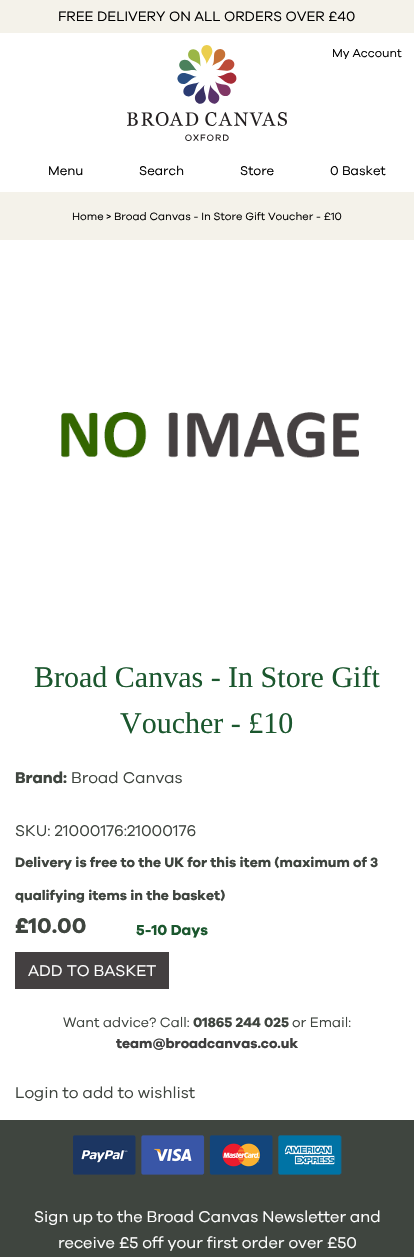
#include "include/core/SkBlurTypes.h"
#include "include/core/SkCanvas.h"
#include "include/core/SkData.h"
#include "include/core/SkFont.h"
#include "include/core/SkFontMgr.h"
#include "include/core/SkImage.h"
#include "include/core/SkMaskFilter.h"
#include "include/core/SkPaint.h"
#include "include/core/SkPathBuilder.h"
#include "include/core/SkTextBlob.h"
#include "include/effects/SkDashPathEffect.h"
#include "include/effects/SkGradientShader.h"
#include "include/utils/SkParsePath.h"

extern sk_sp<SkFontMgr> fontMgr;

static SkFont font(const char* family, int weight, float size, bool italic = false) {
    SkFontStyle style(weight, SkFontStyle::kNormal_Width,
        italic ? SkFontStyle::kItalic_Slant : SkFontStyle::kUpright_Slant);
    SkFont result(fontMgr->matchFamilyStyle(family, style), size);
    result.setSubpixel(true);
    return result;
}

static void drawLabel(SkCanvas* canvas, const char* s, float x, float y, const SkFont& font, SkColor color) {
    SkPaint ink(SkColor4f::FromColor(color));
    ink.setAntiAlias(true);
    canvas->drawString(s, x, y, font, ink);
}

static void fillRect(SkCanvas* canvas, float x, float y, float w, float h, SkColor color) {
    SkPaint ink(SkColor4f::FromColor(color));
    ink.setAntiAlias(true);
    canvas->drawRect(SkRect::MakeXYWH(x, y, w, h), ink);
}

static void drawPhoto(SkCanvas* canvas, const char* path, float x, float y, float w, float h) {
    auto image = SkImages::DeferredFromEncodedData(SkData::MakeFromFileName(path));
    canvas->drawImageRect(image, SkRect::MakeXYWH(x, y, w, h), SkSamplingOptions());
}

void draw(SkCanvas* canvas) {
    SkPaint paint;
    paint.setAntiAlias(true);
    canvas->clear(0xFFFFFFFF);
    fillRect(canvas, 0, 0, 414, 33, 0xFFF4F2EA);
    SkFont font1 = font("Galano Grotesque", 400, 14);
    drawLabel(canvas, "FREE DELIVERY ON ALL ORDERS OVER £40", 58, 21, font1, 0xFF000000);
    SkFont font2 = font("Galano Grotesque", 400, 12);
    drawLabel(canvas, "My Account", 332, 57, font2, 0xFF000000);
    drawPhoto(canvas, "assets/img1.png", 127, 45, 160, 96);
    SkFont font3 = font("Galano Grotesque", 400, 13);
    drawLabel(canvas, "Menu", 48, 175, font3, 0xFF000000);
    drawLabel(canvas, "Search", 139, 175, font3, 0xFF000000);
    drawLabel(canvas, "Store", 240, 175, font3, 0xFF000000);
    drawLabel(canvas, "0 Basket", 330, 175, font3, 0xFF000000);
    fillRect(canvas, 0, 192, 414, 48, 0xFFF4F2EA);
    SkFont font4 = font("Galano Grotesque", 400, 11);
    drawLabel(canvas, "Home > Broad Canvas - In Store Gift Voucher - £10", 72, 220, font4, 0xFF000000);
    drawPhoto(canvas, "assets/img2.png", 61, 412, 298, 46);
    SkFont font5 = font("Liberation Serif", 400, 30);
    drawLabel(canvas, "Broad Canvas - In Store Gift", 34, 687, font5, 0xFF1B572E);
    drawLabel(canvas, "Voucher - £10", 120, 733, font5, 0xFF1B572E);
    SkFont font6 = font("Galano Grotesque", 700, 16);
    drawLabel(canvas, "Brand:", 15, 783, font6, 0xFF3F453F);
    SkFont font7 = font("Galano Grotesque", 400, 16);
    drawLabel(canvas, "Broad Canvas", 71, 783, font7, 0xFF3F453F);
    drawLabel(canvas, "SKU: 21000176:21000176", 15, 836, font7, 0xFF3F453F);
    SkFont font8 = font("Galano Grotesque", 700, 14);
    drawLabel(canvas, "Delivery is free to the UK for this item (maximum of 3", 15, 867, font8, 0xFF3F453F);
    drawLabel(canvas, "qualifying items in the basket)", 15, 900, font8, 0xFF3F453F);
    SkFont font9 = font("Galano Grotesque", 700, 22);
    drawLabel(canvas, "£10.00", 15, 933, font9, 0xFF3F453F);
    SkFont font10 = font("Galano Grotesque", 700, 15);
    drawLabel(canvas, "5-10 Days", 136, 935, font10, 0xFF1B572E);
    fillRect(canvas, 15, 952, 154, 37, 0xFF444041);
    drawLabel(canvas, "ADD TO BASKET", 28, 976, font7, 0xFFFFFFFF);
    drawLabel(canvas, "Want advice? Call:", 63, 1027, font1, 0xFF3F453F);
    drawLabel(canvas, "01865 244 025", 193, 1027, font8, 0xFF3F453F);
    drawLabel(canvas, "or Email:", 292, 1027, font1, 0xFF3F453F);
    drawLabel(canvas, "team@broadcanvas.co.uk", 116, 1048, font8, 0xFF3F3F3F);
    drawLabel(canvas, "Login to add to wishlist", 15, 1098, font7, 0xFF3F453F);
    fillRect(canvas, 0, 1120, 414, 137, 0xFF3F453F);
    drawPhoto(canvas, "assets/img3.png", 73, 1135, 269, 40);
    drawLabel(canvas, "Sign up to the Broad Canvas Newsletter and", 34, 1222, font7, 0xFFFFFFFF);
    drawLabel(canvas, "receive £5 off your first order over £50", 58, 1248, font7, 0xFFFFFFFF);
}
